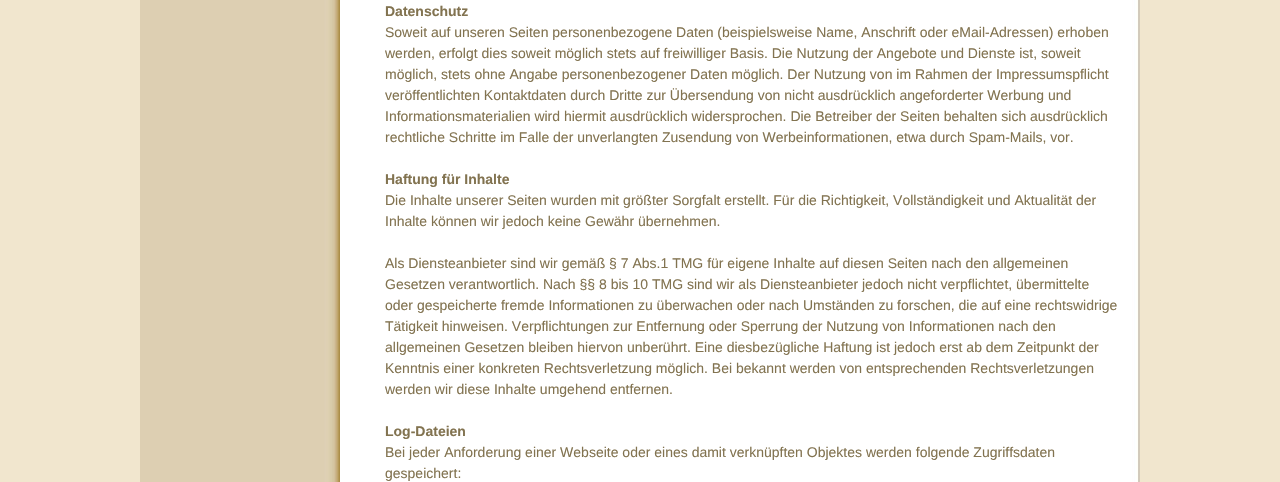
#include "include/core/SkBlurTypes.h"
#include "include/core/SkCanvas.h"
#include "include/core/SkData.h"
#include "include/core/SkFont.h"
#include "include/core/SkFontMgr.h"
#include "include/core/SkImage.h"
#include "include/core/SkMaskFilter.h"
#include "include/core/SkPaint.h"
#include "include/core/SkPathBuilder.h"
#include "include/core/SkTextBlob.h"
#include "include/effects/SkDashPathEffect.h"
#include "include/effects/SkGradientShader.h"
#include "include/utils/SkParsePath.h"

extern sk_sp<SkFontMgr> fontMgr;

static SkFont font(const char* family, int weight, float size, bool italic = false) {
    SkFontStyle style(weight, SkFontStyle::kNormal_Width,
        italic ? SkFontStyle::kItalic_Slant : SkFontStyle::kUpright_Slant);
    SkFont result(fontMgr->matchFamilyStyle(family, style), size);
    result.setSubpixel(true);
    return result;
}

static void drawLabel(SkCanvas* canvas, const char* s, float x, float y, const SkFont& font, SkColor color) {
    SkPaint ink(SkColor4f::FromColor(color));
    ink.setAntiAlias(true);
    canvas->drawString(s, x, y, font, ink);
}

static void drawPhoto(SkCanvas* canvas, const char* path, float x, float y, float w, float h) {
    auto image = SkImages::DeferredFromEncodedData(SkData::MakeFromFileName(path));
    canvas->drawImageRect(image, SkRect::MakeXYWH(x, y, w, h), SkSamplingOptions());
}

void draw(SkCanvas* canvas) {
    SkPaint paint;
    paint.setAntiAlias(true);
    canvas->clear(0xFFF1E6CE);
    drawPhoto(canvas, "assets/img1.png", 140, 0, 1000, 482);
    SkFont font1 = font("Liberation Sans", 700, 14);
    drawLabel(canvas, "Datenschutz", 385, 16, font1, 0xFF827350);
    SkFont font2 = font("Liberation Sans", 400, 14);
    drawLabel(canvas, "Soweit auf unseren Seiten personenbezogene Daten (beispielsweise Name, Anschrift oder eMail-Adressen) erhoben", 385, 37, font2, 0xFF827350);
    drawLabel(canvas, "werden, erfolgt dies soweit möglich stets auf freiwilliger Basis. Die Nutzung der Angebote und Dienste ist, soweit", 385, 58, font2, 0xFF827350);
    drawLabel(canvas, "möglich, stets ohne Angabe personenbezogener Daten möglich. Der Nutzung von im Rahmen der Impressumspflicht", 385, 79, font2, 0xFF827350);
    drawLabel(canvas, "veröffentlichten Kontaktdaten durch Dritte zur Übersendung von nicht ausdrücklich angeforderter Werbung und", 385, 100, font2, 0xFF827350);
    drawLabel(canvas, "Informationsmaterialien wird hiermit ausdrücklich widersprochen. Die Betreiber der Seiten behalten sich ausdrücklich", 385, 121, font2, 0xFF827350);
    drawLabel(canvas, "rechtliche Schritte im Falle der unverlangten Zusendung von Werbeinformationen, etwa durch Spam-Mails, vor.", 385, 142, font2, 0xFF827350);
    drawLabel(canvas, "Haftung für Inhalte", 385, 184, font1, 0xFF827350);
    drawLabel(canvas, "Die Inhalte unserer Seiten wurden mit größter Sorgfalt erstellt. Für die Richtigkeit, Vollständigkeit und Aktualität der", 385, 205, font2, 0xFF827350);
    drawLabel(canvas, "Inhalte können wir jedoch keine Gewähr übernehmen.", 385, 226, font2, 0xFF827350);
    drawLabel(canvas, "Als Diensteanbieter sind wir gemäß § 7 Abs.1 TMG für eigene Inhalte auf diesen Seiten nach den allgemeinen", 385, 268, font2, 0xFF827350);
    drawLabel(canvas, "Gesetzen verantwortlich. Nach §§ 8 bis 10 TMG sind wir als Diensteanbieter jedoch nicht verpflichtet, übermittelte", 385, 289, font2, 0xFF827350);
    drawLabel(canvas, "oder gespeicherte fremde Informationen zu überwachen oder nach Umständen zu forschen, die auf eine rechtswidrige", 385, 310, font2, 0xFF827350);
    drawLabel(canvas, "Tätigkeit hinweisen. Verpflichtungen zur Entfernung oder Sperrung der Nutzung von Informationen nach den", 385, 331, font2, 0xFF827350);
    drawLabel(canvas, "allgemeinen Gesetzen bleiben hiervon unberührt. Eine diesbezügliche Haftung ist jedoch erst ab dem Zeitpunkt der", 385, 352, font2, 0xFF827350);
    drawLabel(canvas, "Kenntnis einer konkreten Rechtsverletzung möglich. Bei bekannt werden von entsprechenden Rechtsverletzungen", 385, 373, font2, 0xFF827350);
    drawLabel(canvas, "werden wir diese Inhalte umgehend entfernen.", 385, 394, font2, 0xFF827350);
    drawLabel(canvas, "Log-Dateien", 385, 436, font1, 0xFF827350);
    drawLabel(canvas, "Bei jeder Anforderung einer Webseite oder eines damit verknüpften Objektes werden folgende Zugriffsdaten", 385, 457, font2, 0xFF827350);
    drawLabel(canvas, "gespeichert:", 385, 478, font2, 0xFF827350);
}
